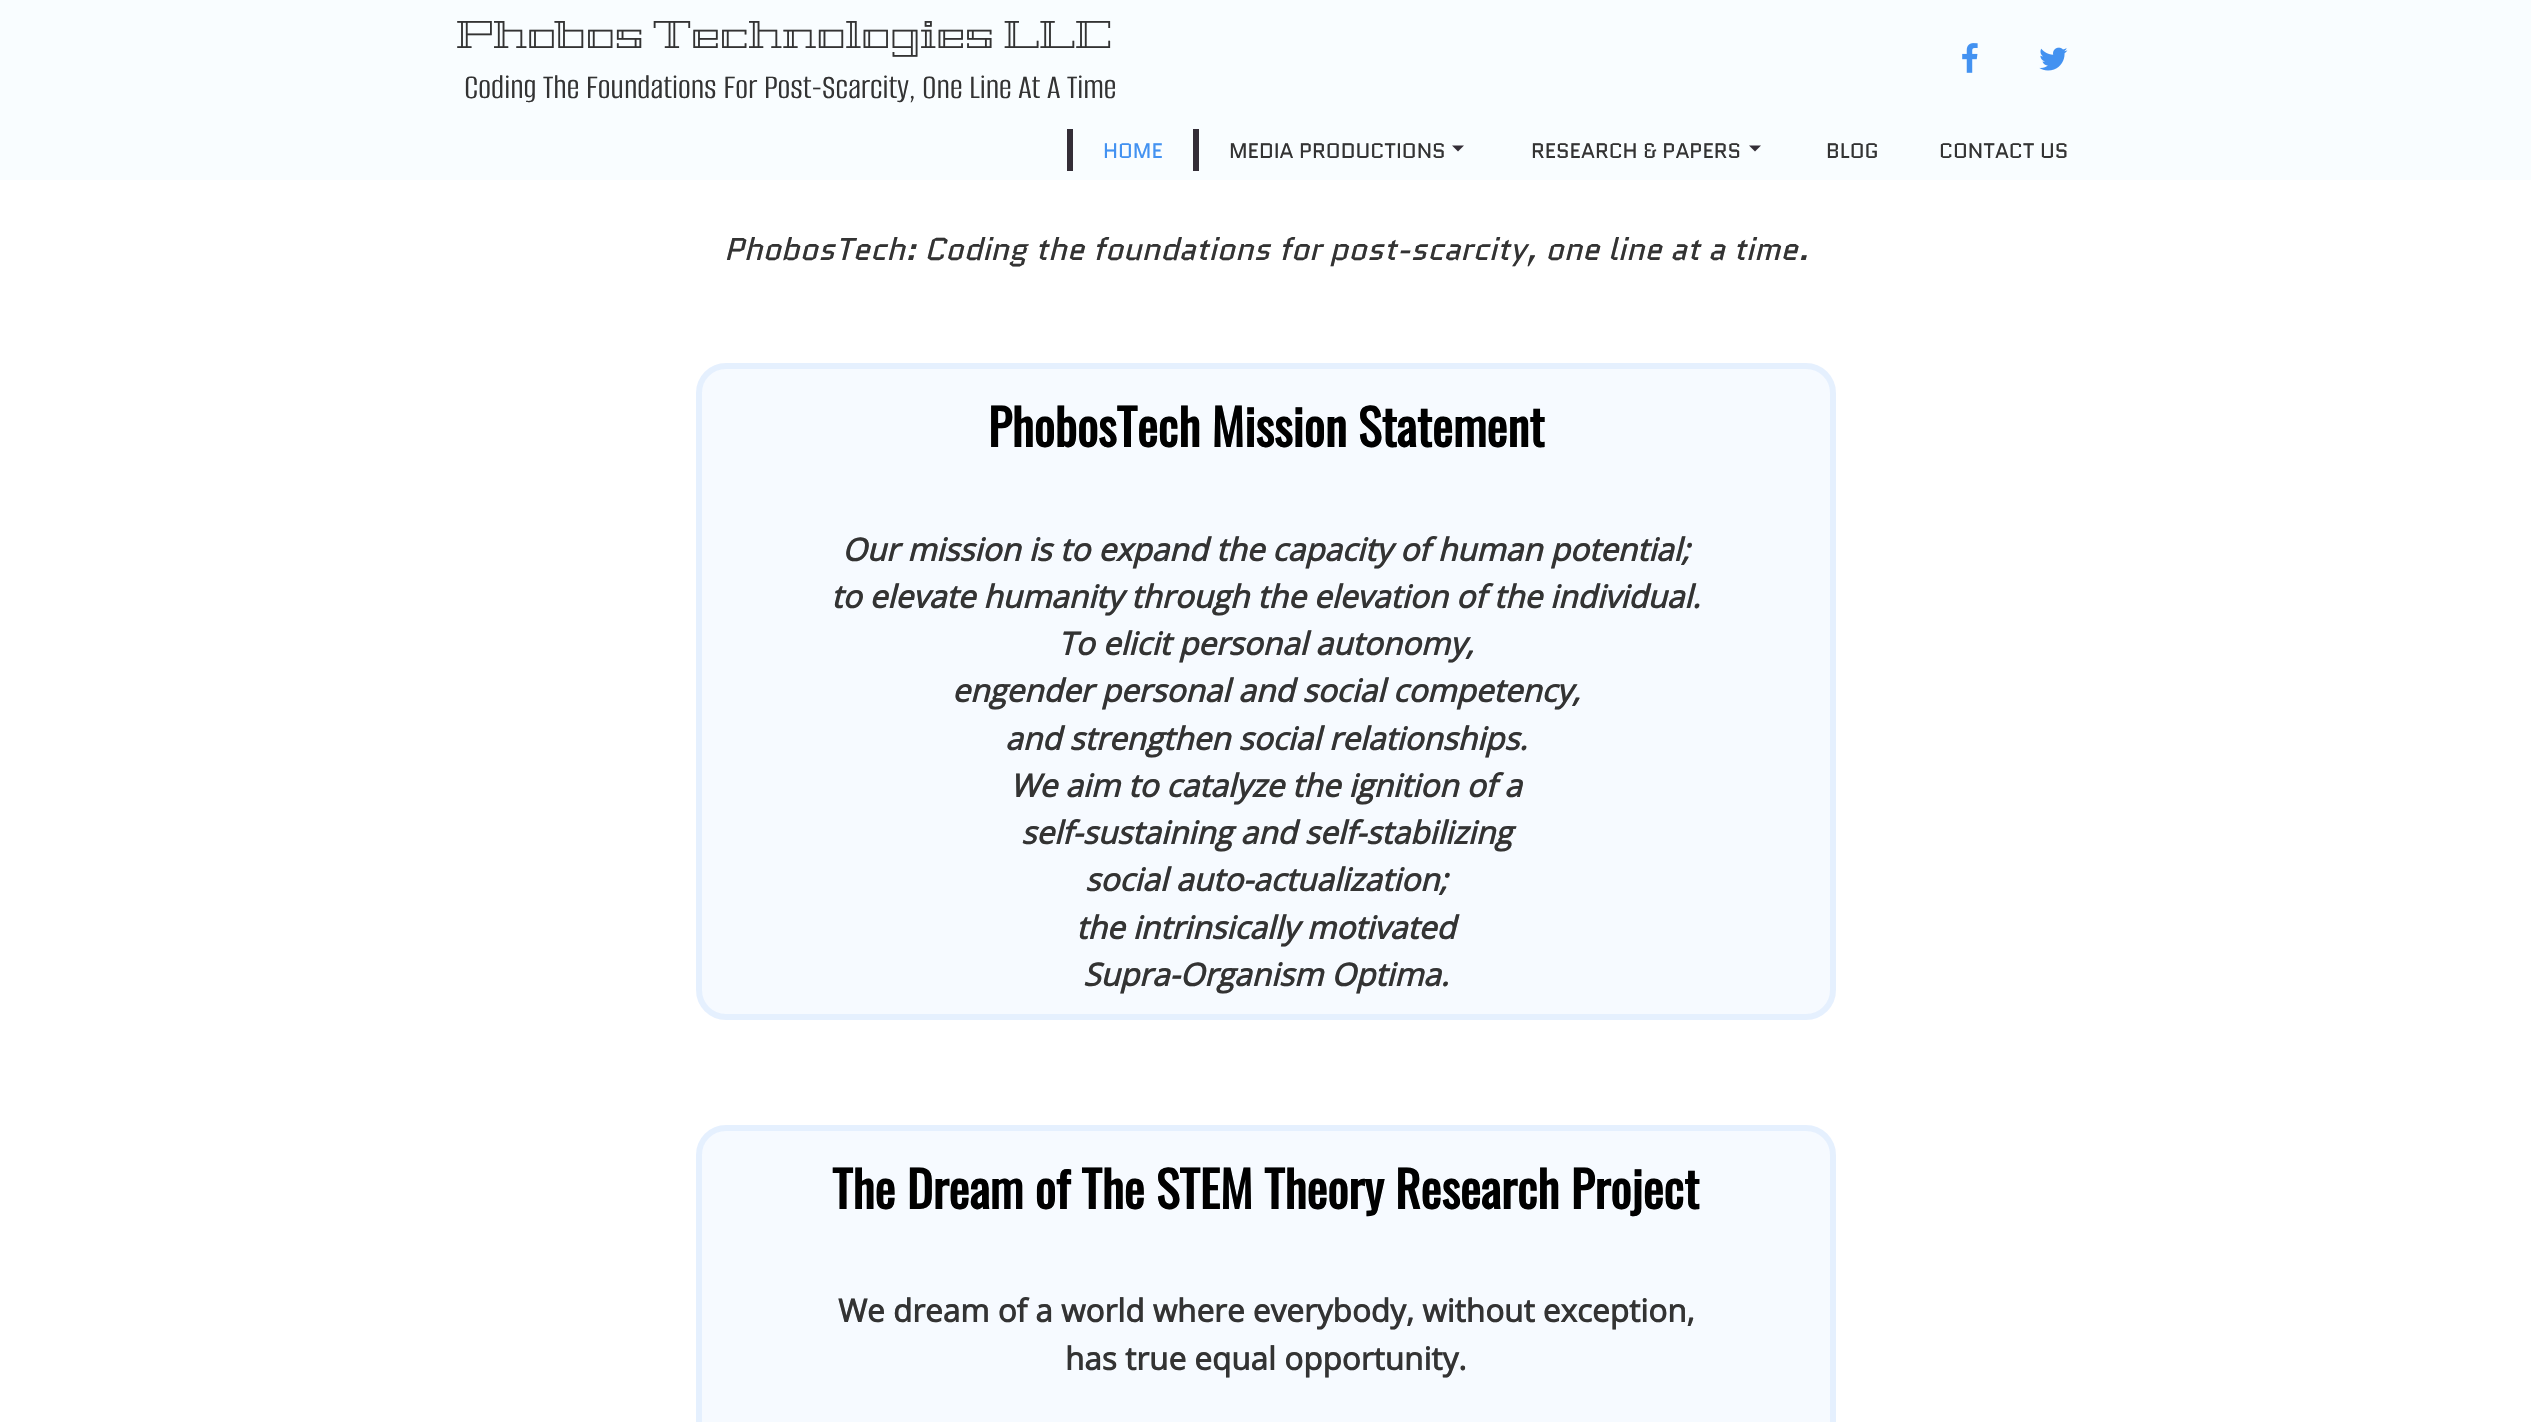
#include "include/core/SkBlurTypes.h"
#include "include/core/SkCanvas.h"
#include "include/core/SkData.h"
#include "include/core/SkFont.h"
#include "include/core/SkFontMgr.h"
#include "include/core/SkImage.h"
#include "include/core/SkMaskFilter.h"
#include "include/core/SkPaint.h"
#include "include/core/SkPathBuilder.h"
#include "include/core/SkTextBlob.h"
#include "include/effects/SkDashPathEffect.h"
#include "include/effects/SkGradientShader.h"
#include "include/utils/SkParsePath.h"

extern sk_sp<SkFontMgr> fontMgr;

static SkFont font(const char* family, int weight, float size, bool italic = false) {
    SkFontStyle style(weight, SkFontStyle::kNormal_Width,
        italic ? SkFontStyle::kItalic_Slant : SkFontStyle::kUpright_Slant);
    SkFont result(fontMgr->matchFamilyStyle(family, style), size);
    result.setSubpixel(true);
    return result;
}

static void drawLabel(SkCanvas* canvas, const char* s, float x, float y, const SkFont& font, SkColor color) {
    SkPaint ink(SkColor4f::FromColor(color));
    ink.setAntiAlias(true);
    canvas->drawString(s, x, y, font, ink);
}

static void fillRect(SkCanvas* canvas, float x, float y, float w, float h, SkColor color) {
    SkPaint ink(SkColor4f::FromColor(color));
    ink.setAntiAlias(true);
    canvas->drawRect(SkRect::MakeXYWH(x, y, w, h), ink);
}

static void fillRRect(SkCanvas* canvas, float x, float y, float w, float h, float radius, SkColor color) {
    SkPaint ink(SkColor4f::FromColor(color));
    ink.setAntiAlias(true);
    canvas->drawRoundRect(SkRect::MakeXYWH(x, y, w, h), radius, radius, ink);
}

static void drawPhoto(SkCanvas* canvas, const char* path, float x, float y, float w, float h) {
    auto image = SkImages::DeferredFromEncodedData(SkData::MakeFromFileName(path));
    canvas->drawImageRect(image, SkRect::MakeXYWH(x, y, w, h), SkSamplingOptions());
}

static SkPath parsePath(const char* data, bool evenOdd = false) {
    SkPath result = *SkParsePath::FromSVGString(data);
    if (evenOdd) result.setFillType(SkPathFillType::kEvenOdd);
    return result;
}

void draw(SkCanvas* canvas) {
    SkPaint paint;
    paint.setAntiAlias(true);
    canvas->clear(0xFFFFFFFF);
    fillRect(canvas, 0, 0, 2531, 180, 0xFFF9FDFF);
    SkFont font1 = font("Geostar", 400, 39);
    drawLabel(canvas, "Phobos Technologies LLC", 456, 48, font1, 0xFF333333);
    SkFont font2 = font("Alumni Sans", 400, 36);
    drawLabel(canvas, "Coding The Foundations For Post-Scarcity, One Line At A Time", 464, 98, font2, 0xFF333333);
    drawPhoto(canvas, "assets/img1.png", 1962, 43, 16, 30);
    drawPhoto(canvas, "assets/img2.png", 2039, 47, 29, 24);
    fillRect(canvas, 1193, 129, 6, 42, 0xFF342E37);
    fillRect(canvas, 1067, 129, 6, 42, 0xFF342E37);
    SkFont font3 = font("Quantico", 400, 21);
    drawLabel(canvas, "HOME", 1103, 158, font3, 0xFF4392F1);
    drawLabel(canvas, "MEDIA PRODUCTIONS", 1229, 158, font3, 0xFF333333);
    paint.setColor(0xFF342E37);
    canvas->drawPath(parsePath("M1452 145.5H1464L1458 151.5Z"), paint);
    drawLabel(canvas, "RESEARCH & PAPERS", 1531, 158, font3, 0xFF333333);
    canvas->drawPath(parsePath("M1749 145.5H1761L1755 151.5Z"), paint);
    drawLabel(canvas, "BLOG", 1826, 158, font3, 0xFF333333);
    drawLabel(canvas, "CONTACT US", 1939, 158, font3, 0xFF333333);
    SkFont font4 = font("Quantico", 400, 31.5f, true);
    drawLabel(canvas, "PhobosTech: Coding the foundations for post-scarcity, one line at a time.", 724, 260, font4, 0xFF333333);
    fillRRect(canvas, 696, 363, 1140, 657, 30, 0xFFF6FAFF);
    paint.setStroke(true);
    paint.setStrokeWidth(6);
    paint.setColor(0x174392F1);
    canvas->drawRoundRect(SkRect::MakeXYWH(699, 366, 1134, 651), 27, 27, paint);
    SkFont font5 = font("Oswald", 700, 49.5f);
    drawLabel(canvas, "PhobosTech Mission Statement", 988, 447, font5, 0xFF000000);
    SkFont font6 = font("Open Sans", 700, 31.5f, true);
    drawLabel(canvas, "Our mission is to expand the capacity of human potential;", 842, 561, font6, 0xFF333333);
    drawLabel(canvas, "to elevate humanity through the elevation of the individual.", 831, 608, font6, 0xFF333333);
    drawLabel(canvas, "To elicit personal autonomy,", 1058, 655, font6, 0xFF333333);
    drawLabel(canvas, "engender personal and social competency,", 952, 702, font6, 0xFF333333);
    drawLabel(canvas, "and strengthen social relationships.", 1005, 750, font6, 0xFF333333);
    drawLabel(canvas, "We aim to catalyze the ignition of a", 1010, 797, font6, 0xFF333333);
    drawLabel(canvas, "self-sustaining and self-stabilizing", 1021, 844, font6, 0xFF333333);
    drawLabel(canvas, "social auto-actualization;", 1085, 891, font6, 0xFF333333);
    drawLabel(canvas, "the intrinsically motivated", 1076, 939, font6, 0xFF333333);
    drawLabel(canvas, "Supra-Organism Optima.", 1083, 986, font6, 0xFF333333);
    fillRRect(canvas, 696, 1125, 1140, 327, 30, 0xFFF6FAFF);
    canvas->drawRoundRect(SkRect::MakeXYWH(699, 1128, 1134, 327), 27, 27, paint);
    drawLabel(canvas, "The Dream of The STEM Theory Research Project", 832, 1209, font5, 0xFF000000);
    SkFont font7 = font("Open Sans", 700, 31.5f);
    drawLabel(canvas, "We dream of a world where everybody, without exception,", 838, 1322, font7, 0xFF333333);
    drawLabel(canvas, "has true equal opportunity.", 1065, 1370, font7, 0xFF333333);
}
